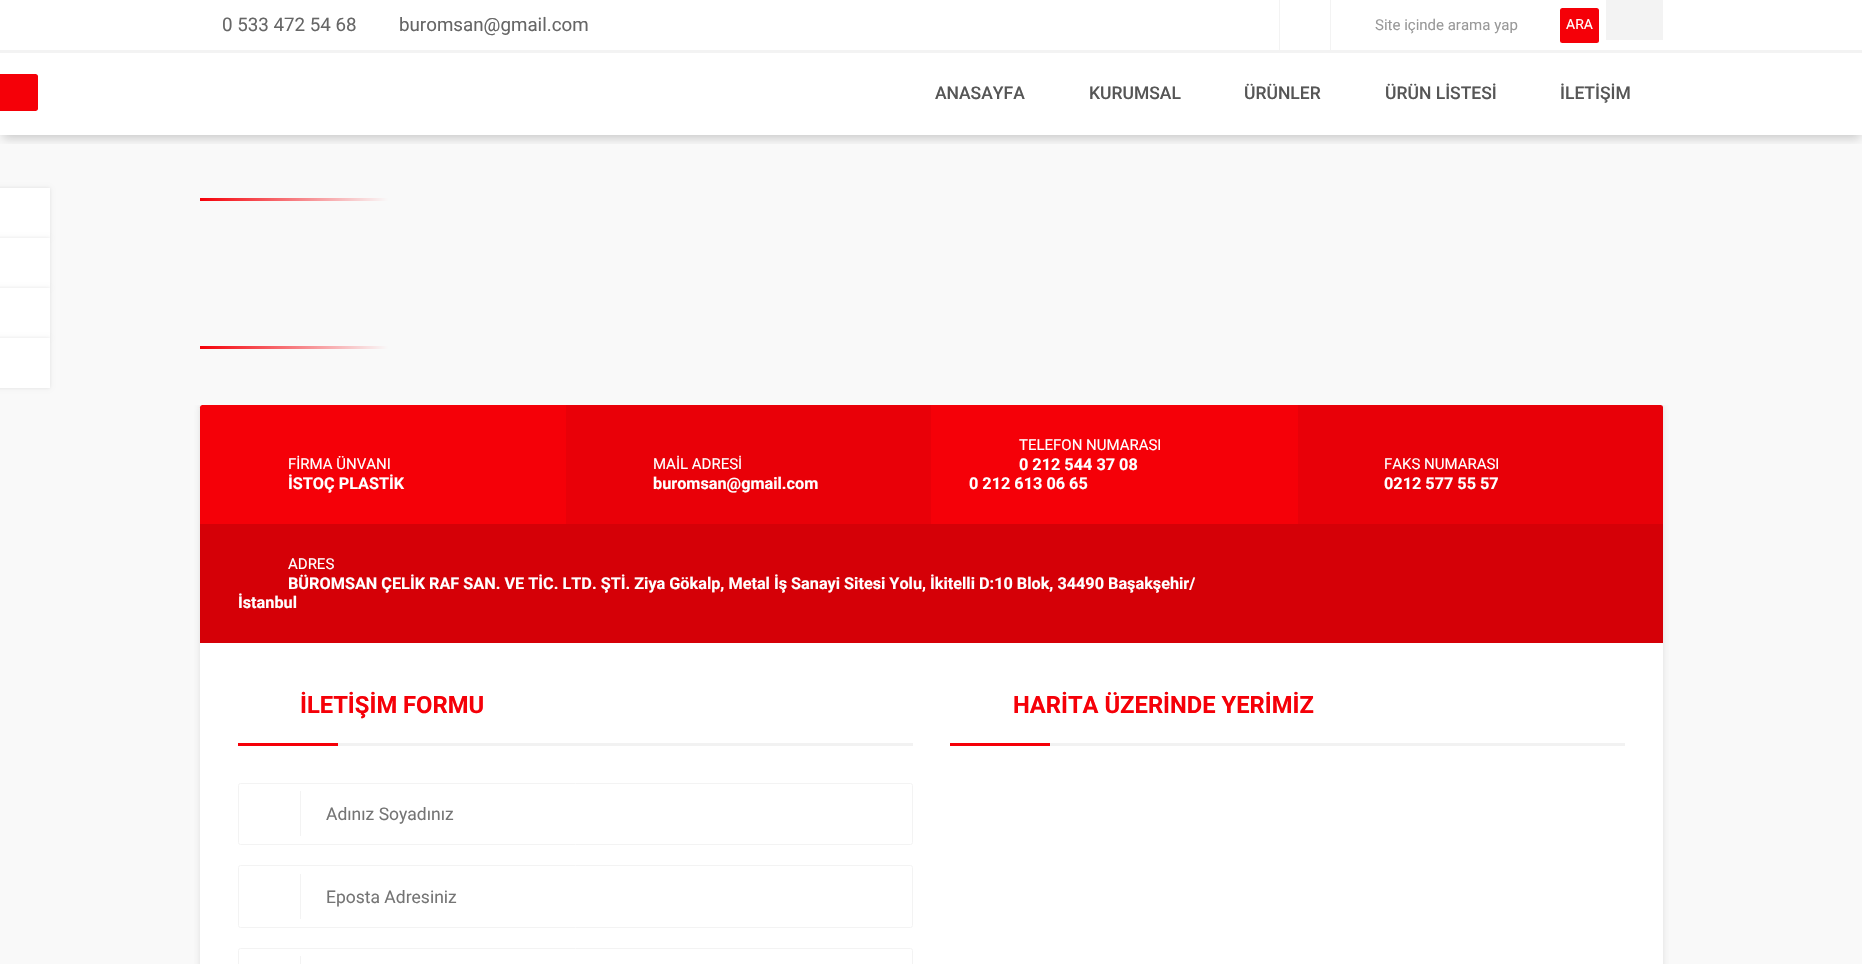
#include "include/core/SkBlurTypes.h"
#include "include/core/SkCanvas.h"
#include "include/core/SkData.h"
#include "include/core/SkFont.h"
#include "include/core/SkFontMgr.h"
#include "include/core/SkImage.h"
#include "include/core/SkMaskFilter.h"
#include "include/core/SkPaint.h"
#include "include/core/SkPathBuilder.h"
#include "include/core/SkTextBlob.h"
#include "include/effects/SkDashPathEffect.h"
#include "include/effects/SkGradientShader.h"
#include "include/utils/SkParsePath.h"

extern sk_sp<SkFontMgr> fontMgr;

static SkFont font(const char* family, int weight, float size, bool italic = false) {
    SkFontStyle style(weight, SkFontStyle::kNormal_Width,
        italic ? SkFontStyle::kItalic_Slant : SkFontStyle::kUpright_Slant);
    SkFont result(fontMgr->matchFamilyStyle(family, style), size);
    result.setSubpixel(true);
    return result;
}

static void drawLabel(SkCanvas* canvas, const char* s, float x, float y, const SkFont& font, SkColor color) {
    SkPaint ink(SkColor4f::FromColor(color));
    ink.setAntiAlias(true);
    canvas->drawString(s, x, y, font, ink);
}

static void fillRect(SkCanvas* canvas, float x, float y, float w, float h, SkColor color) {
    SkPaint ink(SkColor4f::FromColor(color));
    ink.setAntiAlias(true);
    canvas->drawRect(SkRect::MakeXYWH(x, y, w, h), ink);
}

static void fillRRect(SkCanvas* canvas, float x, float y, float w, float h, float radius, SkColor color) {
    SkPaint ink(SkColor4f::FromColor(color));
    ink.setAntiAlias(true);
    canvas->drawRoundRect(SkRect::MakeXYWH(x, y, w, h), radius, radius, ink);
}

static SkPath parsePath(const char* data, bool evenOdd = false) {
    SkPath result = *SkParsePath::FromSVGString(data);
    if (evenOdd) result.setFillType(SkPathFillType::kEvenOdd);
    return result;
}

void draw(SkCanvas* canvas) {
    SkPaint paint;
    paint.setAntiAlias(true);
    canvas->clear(0xFFF9F9F9);
    fillRect(canvas, 0, 0, 1862, 135, 0xFFFFFFFF);
    fillRect(canvas, 0, 50, 1862, 3, 0xFFF3F3F3);
    SkFont font1 = font("Roboto", 400, 18.75f);
    drawLabel(canvas, "0 533 472 54 68", 222, 31, font1, 0xFF666666);
    drawLabel(canvas, "buromsan@gmail.com", 399, 31, font1, 0xFF666666);
    fillRect(canvas, 1279, 0, 1, 50, 0xFFF3F3F3);
    fillRect(canvas, 1330, 0, 1, 50, 0xFFF3F3F3);
    SkFont font2 = font("Roboto", 400, 15);
    drawLabel(canvas, "Site içinde arama yap", 1375, 30, font2, 0xFF999999);
    fillRRect(canvas, 1560, 8, 39, 35, 2.5f, 0xFFF50008);
    SkFont font3 = font("Roboto", 400, 14);
    drawLabel(canvas, "ARA", 1566, 29, font3, 0xFFFFFFFF);
    fillRect(canvas, 1606, 0, 57, 40, 0xFFF3F3F3);
    canvas->save();
    canvas->clipRect(SkRect::MakeXYWH(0, 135, 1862, 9));
    paint.setColor(0x33000000);
    paint.setMaskFilter(SkMaskFilter::MakeBlur(kNormal_SkBlurStyle, 5));
    canvas->drawRect(SkRect::MakeXYWH(3, 60, 1857, 78), paint);
    paint.setMaskFilter(nullptr);
    canvas->restore();
    paint.setColor(0xFFF50008);
    canvas->drawPath(parsePath("M0 74H35.5C37 74 38 75 38 76.5V108.5C38 110 37 111 35.5 111H0Z"), paint);
    SkFont font4 = font("Roboto", 500, 17.5f);
    drawLabel(canvas, "ANASAYFA", 935, 99, font4, 0xFF565656);
    drawLabel(canvas, "KURUMSAL", 1089, 99, font4, 0xFF565656);
    drawLabel(canvas, "ÜRÜNLER", 1244, 99, font4, 0xFF565656);
    drawLabel(canvas, "ÜRÜN LİSTESİ", 1385, 99, font4, 0xFF565656);
    drawLabel(canvas, "İLETİŞİM", 1560, 99, font4, 0xFF565656);
    paint.setColor(0x1A000000);
    paint.setMaskFilter(SkMaskFilter::MakeBlur(kNormal_SkBlurStyle, 2));
    canvas->drawRect(SkRect::MakeXYWH(-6, 188, 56, 50), paint);
    paint.setMaskFilter(nullptr);
    fillRect(canvas, 0, 188, 50, 50, 0xFFFFFFFF);
    paint.setMaskFilter(SkMaskFilter::MakeBlur(kNormal_SkBlurStyle, 2));
    canvas->drawRect(SkRect::MakeXYWH(-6, 238, 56, 50), paint);
    paint.setMaskFilter(nullptr);
    fillRect(canvas, 0, 238, 50, 50, 0xFFFFFFFF);
    paint.setMaskFilter(SkMaskFilter::MakeBlur(kNormal_SkBlurStyle, 2));
    canvas->drawRect(SkRect::MakeXYWH(-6, 288, 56, 50), paint);
    paint.setMaskFilter(nullptr);
    fillRect(canvas, 0, 288, 50, 50, 0xFFFFFFFF);
    paint.setMaskFilter(SkMaskFilter::MakeBlur(kNormal_SkBlurStyle, 2));
    canvas->drawRect(SkRect::MakeXYWH(-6, 338, 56, 50), paint);
    paint.setMaskFilter(nullptr);
    fillRect(canvas, 0, 338, 50, 50, 0xFFFFFFFF);
    {
        const SkColor colors[] = {0xFFF50008, 0xFFF9F9F9};
        const float stops[] = {0, 1};
        const SkPoint ends[] = {{200, 199}, {388, 199}};
        paint.setShader(SkGradientShader::MakeLinear(ends, colors, stops, 2, SkTileMode::kClamp));
        paint.setAlpha(255);
    }
    canvas->drawRect(SkRect::MakeXYWH(200, 198, 188, 3), paint);
    {
        const SkColor colors[] = {0xFFF50008, 0xFFF9F9F9};
        const float stops[] = {0, 1};
        const SkPoint ends[] = {{200, 348}, {388, 348}};
        paint.setShader(SkGradientShader::MakeLinear(ends, colors, stops, 2, SkTileMode::kClamp));
        paint.setAlpha(255);
    }
    canvas->drawRect(SkRect::MakeXYWH(200, 346, 188, 3), paint);
    canvas->save();
    canvas->clipRect(SkRect::MakeXYWH(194, 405, 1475, 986));
    paint.setShader(nullptr);
    paint.setColor(0x1A000000);
    paint.setMaskFilter(SkMaskFilter::MakeBlur(kNormal_SkBlurStyle, 3));
    canvas->drawRoundRect(SkRect::MakeXYWH(200, 405, 1463, 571), 2.5f, 2.5f, paint);
    paint.setMaskFilter(nullptr);
    canvas->restore();
    fillRRect(canvas, 200, 405, 1463, 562, 2.5f, 0xFFFFFFFF);
    paint.setColor(0xFFF50008);
    canvas->drawPath(parsePath("M202.5 405H1660.5C1662 405 1663 406 1663 407.5V643H200V407.5C200 406 201 405 202.5 405Z"), paint);
    drawLabel(canvas, "FİRMA ÜNVANI", 288, 469, font2, 0xFFFFFFFF);
    SkFont font5 = font("Roboto", 700, 16.25f);
    drawLabel(canvas, "İSTOÇ PLASTİK", 288, 489, font5, 0xFFFFFFFF);
    fillRect(canvas, 566, 405, 365, 119, 0xFFE90008);
    drawLabel(canvas, "MAİL ADRESİ", 653, 469, font2, 0xFFFFFFFF);
    drawLabel(canvas, "buromsan@gmail.com", 653, 489, font5, 0xFFFFFFFF);
    drawLabel(canvas, "TELEFON NUMARASI", 1019, 450, font2, 0xFFFFFFFF);
    drawLabel(canvas, "0 212 544 37 08", 1019, 470, font5, 0xFFFFFFFF);
    drawLabel(canvas, "0 212 613 06 65", 969, 489, font5, 0xFFFFFFFF);
    fillRect(canvas, 1298, 405, 365, 119, 0x0D000000);
    drawLabel(canvas, "FAKS NUMARASI", 1384, 469, font2, 0xFFFFFFFF);
    drawLabel(canvas, "0212 577 55 57", 1384, 489, font5, 0xFFFFFFFF);
    fillRect(canvas, 200, 524, 1463, 119, 0xFFD50007);
    drawLabel(canvas, "ADRES", 288, 569, font2, 0xFFFFFFFF);
    drawLabel(canvas, "BÜROMSAN ÇELİK RAF SAN. VE TİC. LTD. ŞTİ. Ziya Gökalp, Metal İş Sanayi Sitesi Yolu, İkitelli D:10 Blok, 34490 Başakşehir/", 288, 589, font5, 0xFFFFFFFF);
    drawLabel(canvas, "İstanbul", 238, 608, font5, 0xFFFFFFFF);
    SkFont font6 = font("Roboto", 700, 23.75f);
    drawLabel(canvas, "İLETİŞİM FORMU", 300, 713, font6, 0xFFF50008);
    fillRect(canvas, 238, 743, 100, 3, 0xFFF50008);
    fillRect(canvas, 338, 743, 575, 3, 0xFFF2F2F2);
    paint.setStroke(true);
    paint.setStrokeWidth(1);
    paint.setColor(0xFFF3F3F3);
    canvas->drawRoundRect(SkRect::MakeXYWH(238.5f, 783.5f, 674, 61), 2, 2, paint);
    fillRect(canvas, 300, 791, 1, 45, 0xFFF3F3F3);
    SkFont font7 = font("Roboto", 400, 17.5f);
    drawLabel(canvas, "Adınız Soyadınız", 326, 820, font7, 0xFF757575);
    canvas->drawRoundRect(SkRect::MakeXYWH(238.5f, 865.5f, 674, 62), 2, 2, paint);
    fillRect(canvas, 300, 874, 1, 45, 0xFFF3F3F3);
    drawLabel(canvas, "Eposta Adresiniz", 326, 903, font7, 0xFF757575);
    canvas->drawRoundRect(SkRect::MakeXYWH(238.5f, 948.5f, 674, 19), 2, 2, paint);
    fillRect(canvas, 300, 956, 1, 8, 0xFFF3F3F3);
    drawLabel(canvas, "HARİTA ÜZERİNDE YERİMİZ", 1013, 713, font6, 0xFFF50008);
    fillRect(canvas, 950, 743, 100, 3, 0xFFF50008);
    fillRect(canvas, 1050, 743, 575, 3, 0xFFF2F2F2);
}
